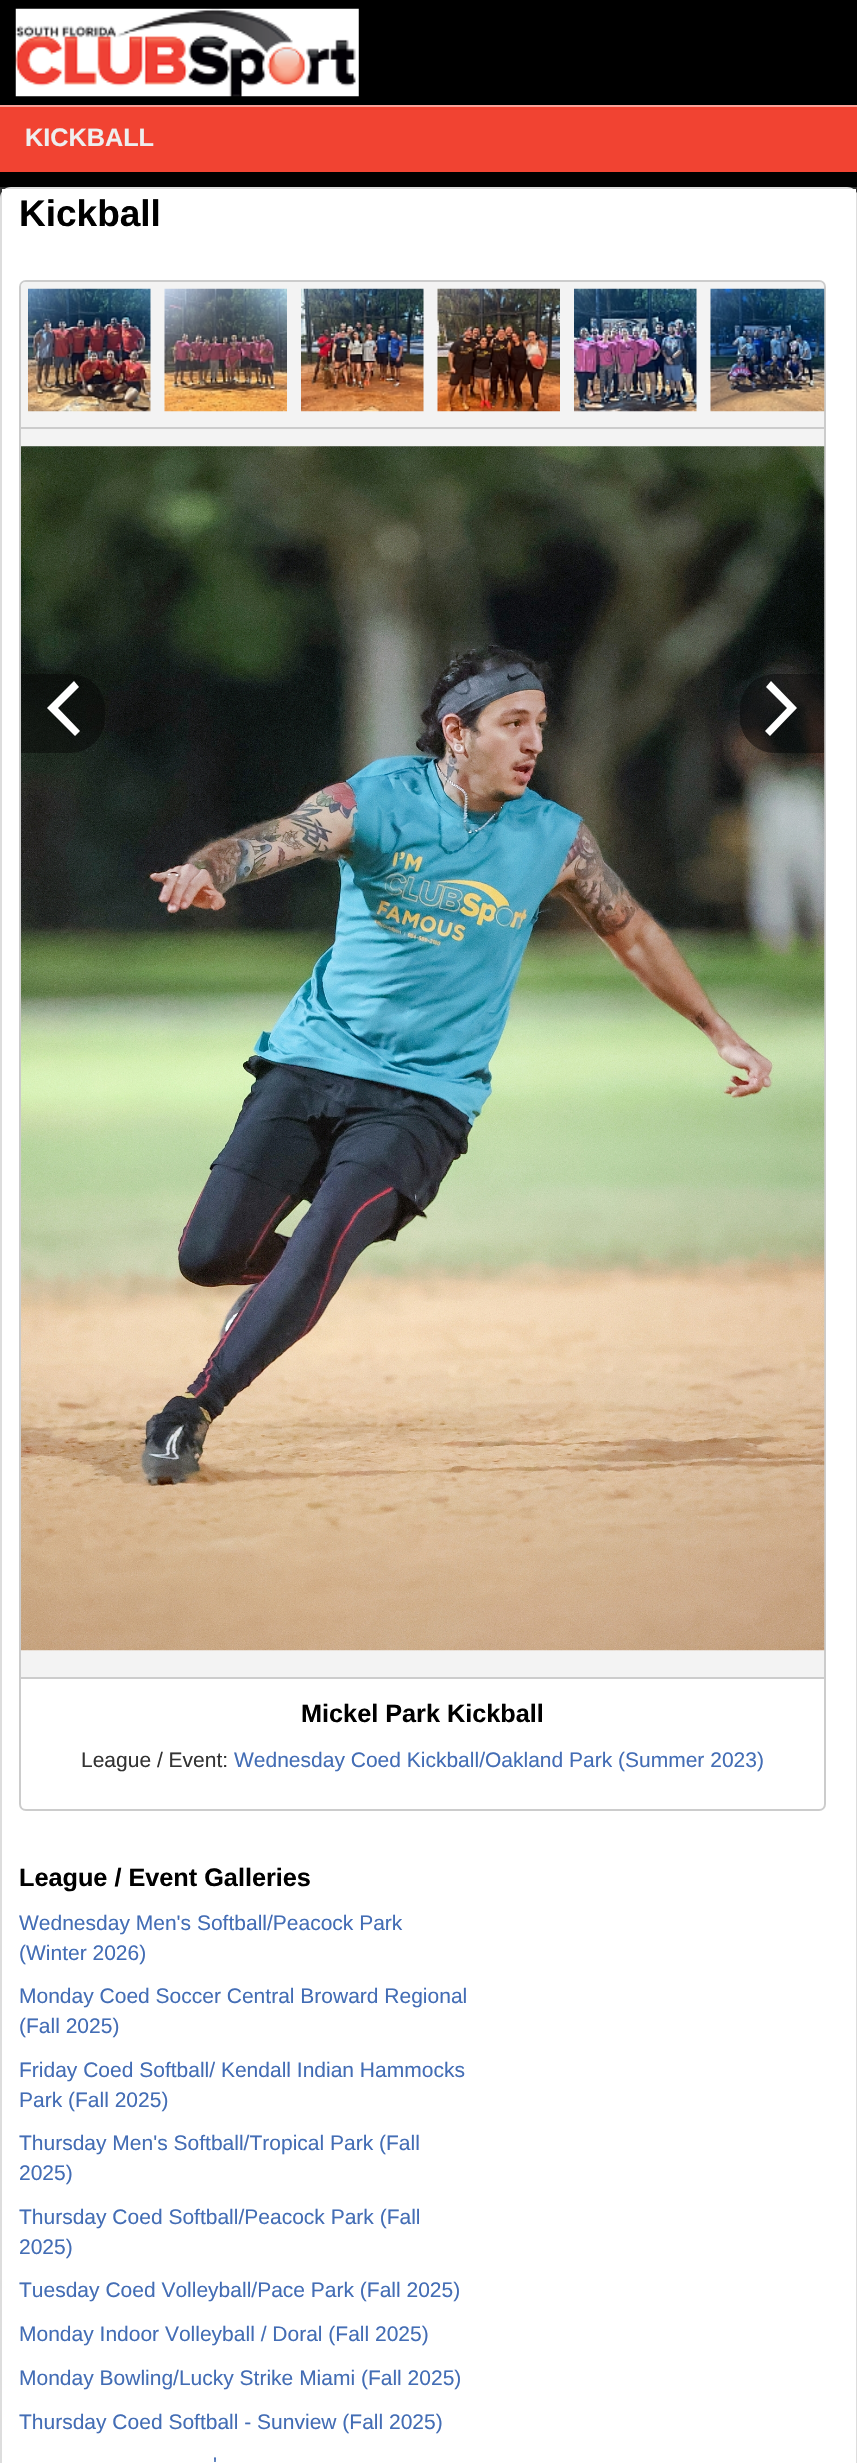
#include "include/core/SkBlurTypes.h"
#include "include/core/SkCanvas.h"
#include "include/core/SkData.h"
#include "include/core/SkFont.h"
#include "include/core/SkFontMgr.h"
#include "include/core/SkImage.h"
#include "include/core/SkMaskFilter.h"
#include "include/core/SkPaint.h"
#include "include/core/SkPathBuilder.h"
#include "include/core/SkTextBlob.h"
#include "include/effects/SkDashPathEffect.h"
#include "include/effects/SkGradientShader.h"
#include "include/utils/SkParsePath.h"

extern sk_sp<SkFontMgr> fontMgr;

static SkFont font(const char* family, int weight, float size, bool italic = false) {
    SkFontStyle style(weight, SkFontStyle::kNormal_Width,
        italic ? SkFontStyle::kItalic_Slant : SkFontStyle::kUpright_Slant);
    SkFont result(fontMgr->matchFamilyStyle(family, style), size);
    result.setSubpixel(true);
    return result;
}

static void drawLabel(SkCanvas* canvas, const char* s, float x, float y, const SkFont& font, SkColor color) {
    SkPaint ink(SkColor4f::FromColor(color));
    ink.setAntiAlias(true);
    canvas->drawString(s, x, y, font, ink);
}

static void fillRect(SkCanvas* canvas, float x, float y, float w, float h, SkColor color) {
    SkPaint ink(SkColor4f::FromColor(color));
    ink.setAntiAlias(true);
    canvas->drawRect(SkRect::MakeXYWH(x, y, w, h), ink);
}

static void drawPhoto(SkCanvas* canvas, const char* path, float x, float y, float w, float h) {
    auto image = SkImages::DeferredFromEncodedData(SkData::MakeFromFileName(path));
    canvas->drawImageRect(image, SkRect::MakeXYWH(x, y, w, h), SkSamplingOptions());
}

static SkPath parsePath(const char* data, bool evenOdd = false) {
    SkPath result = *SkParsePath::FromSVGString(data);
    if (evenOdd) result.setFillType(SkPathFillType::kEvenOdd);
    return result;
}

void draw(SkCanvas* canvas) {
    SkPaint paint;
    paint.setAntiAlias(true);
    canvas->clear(0xFF000000);
    drawPhoto(canvas, "assets/img1.png", 15, 8, 344, 89);
    fillRect(canvas, 0, 107, 857, 65, 0xFFF14332);
    fillRect(canvas, 0, 105, 857, 2, 0xFFF8A199);
    SkFont font1 = font("Liberation Sans", 700, 25.25f);
    drawLabel(canvas, "KICKBALL", 25, 146, font1, 0xFFEEEEEE);
    drawPhoto(canvas, "assets/img2.png", 0, 187, 857, 1);
    drawPhoto(canvas, "assets/img3.png", 0, 187, 857, 11);
    paint.setColor(0xFF999999);
    paint.setMaskFilter(SkMaskFilter::MakeBlur(kNormal_SkBlurStyle, 1));
    canvas->drawRoundRect(SkRect::MakeXYWH(2, 189, 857, 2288), 11, 11, paint);
    paint.setMaskFilter(nullptr);
    paint.setStroke(true);
    paint.setStrokeWidth(2);
    paint.setColor(0xFFDDDDDD);
    canvas->drawRoundRect(SkRect::MakeXYWH(1, 188, 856, 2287), 10, 10, paint);
    fillRect(canvas, 2, 189, 854, 2274, 0xFFFFFFFF);
    SkFont font2 = font("Liberation Sans", 700, 37);
    drawLabel(canvas, "Kickball", 19, 226, font2, 0xFF000000);
    paint.setStroke(false);
    paint.setColor(0xFFF3F3F3);
    canvas->drawPath(parsePath("M26 281H819C822.5 281 825 283.5 825 287V428H20V287C20 283.5 22.5 281 26 281Z"), paint);
    paint.setStroke(true);
    paint.setColor(0xFFCCCCCC);
    canvas->drawPath(parsePath("M26 281H819C822.5 281 825 283.5 825 287V428H20V287C20 283.5 22.5 281 26 281Z"), paint);
    paint.setStroke(false);
    paint.setColor(0xFFF3F3F3);
    canvas->drawPath(parsePath("M26 282C23 282 21 284 21 287V418H158V282ZM28 289V411H151V289Z", true), paint);
    drawPhoto(canvas, "assets/img4.png", 28, 288, 123, 124);
    drawPhoto(canvas, "assets/img5.png", 164, 288, 123, 124);
    drawPhoto(canvas, "assets/img6.png", 301, 288, 123, 124);
    drawPhoto(canvas, "assets/img7.png", 437, 288, 123, 124);
    drawPhoto(canvas, "assets/img8.png", 574, 288, 123, 124);
    canvas->drawPath(parsePath("M704 282V418H824V411H711V289H824C824 286 823 282 819 282Z"), paint);
    drawPhoto(canvas, "assets/img9.png", 710, 288, 115, 124);
    fillRect(canvas, 21, 429, 803, 1248, 0xFFF3F3F3);
    fillRect(canvas, 824, 429, 2, 1248, 0xFFCCCCCC);
    fillRect(canvas, 19, 429, 2, 1248, 0xFFCCCCCC);
    drawPhoto(canvas, "assets/img10.png", 21, 446, 804, 1205);
    paint.setColor(0x80060606);
    canvas->drawPath(parsePath("M21 674H70C89.5 674 105 689.5 105 709V718C105 737.5 89.5 753 70 753H21Z"), paint);
    paint.setColor(0xFFFFFFFF);
    canvas->drawPath(parsePath("M80 731L58 708L79 687L74 681L47 708L75 736Z", true), paint);
    paint.setColor(0x80060606);
    canvas->drawPath(parsePath("M775 674H824V753H775C755.5 753 740 737.5 740 718V709C740 689.5 755.5 674 775 674Z"), paint);
    paint.setColor(0xFFFFFFFF);
    canvas->drawPath(parsePath("M765 731L787 708L766 687L771 681L797 708L770 736Z", true), paint);
    paint.setStroke(true);
    paint.setColor(0xFFCCCCCC);
    canvas->drawPath(parsePath("M20 1678H825V1804C825 1807.5 822.5 1810 819 1810H26C22.5 1810 20 1807.5 20 1804Z"), paint);
    drawLabel(canvas, "Mickel Park Kickball", 301, 1722, font1, 0xFF000000);
    SkFont font3 = font("Liberation Sans", 400, 21);
    drawLabel(canvas, "League / Event:", 81, 1767, font3, 0xFF333333);
    drawLabel(canvas, "Wednesday Coed Kickball/Oakland Park (Summer 2023)", 234, 1767, font3, 0xFF436DB5);
    drawLabel(canvas, "League / Event Galleries", 19, 1886, font1, 0xFF000000);
    drawLabel(canvas, "Wednesday Men's Softball/Peacock Park", 19, 1930, font3, 0xFF436DB5);
    drawLabel(canvas, "(Winter 2026)", 19, 1960, font3, 0xFF436DB5);
    drawLabel(canvas, "Monday Coed Soccer Central Broward Regional", 19, 2003, font3, 0xFF436DB5);
    drawLabel(canvas, "(Fall 2025)", 19, 2033, font3, 0xFF436DB5);
    drawLabel(canvas, "Friday Coed Softball/ Kendall Indian Hammocks", 19, 2077, font3, 0xFF436DB5);
    drawLabel(canvas, "Park (Fall 2025)", 19, 2107, font3, 0xFF436DB5);
    drawLabel(canvas, "Thursday Men's Softball/Tropical Park (Fall", 19, 2150, font3, 0xFF436DB5);
    drawLabel(canvas, "2025)", 19, 2180, font3, 0xFF436DB5);
    drawLabel(canvas, "Thursday Coed Softball/Peacock Park (Fall", 19, 2224, font3, 0xFF436DB5);
    drawLabel(canvas, "2025)", 19, 2254, font3, 0xFF436DB5);
    drawLabel(canvas, "Tuesday Coed Volleyball/Pace Park (Fall 2025)", 19, 2297, font3, 0xFF436DB5);
    drawLabel(canvas, "Monday Indoor Volleyball / Doral (Fall 2025)", 19, 2341, font3, 0xFF436DB5);
    drawLabel(canvas, "Monday Bowling/Lucky Strike Miami (Fall 2025)", 19, 2385, font3, 0xFF436DB5);
    drawLabel(canvas, "Thursday Coed Softball - Sunview (Fall 2025)", 19, 2429, font3, 0xFF436DB5);
    drawLabel(canvas, "'", 213, 2472, font3, 0xFF436DB5);
}
